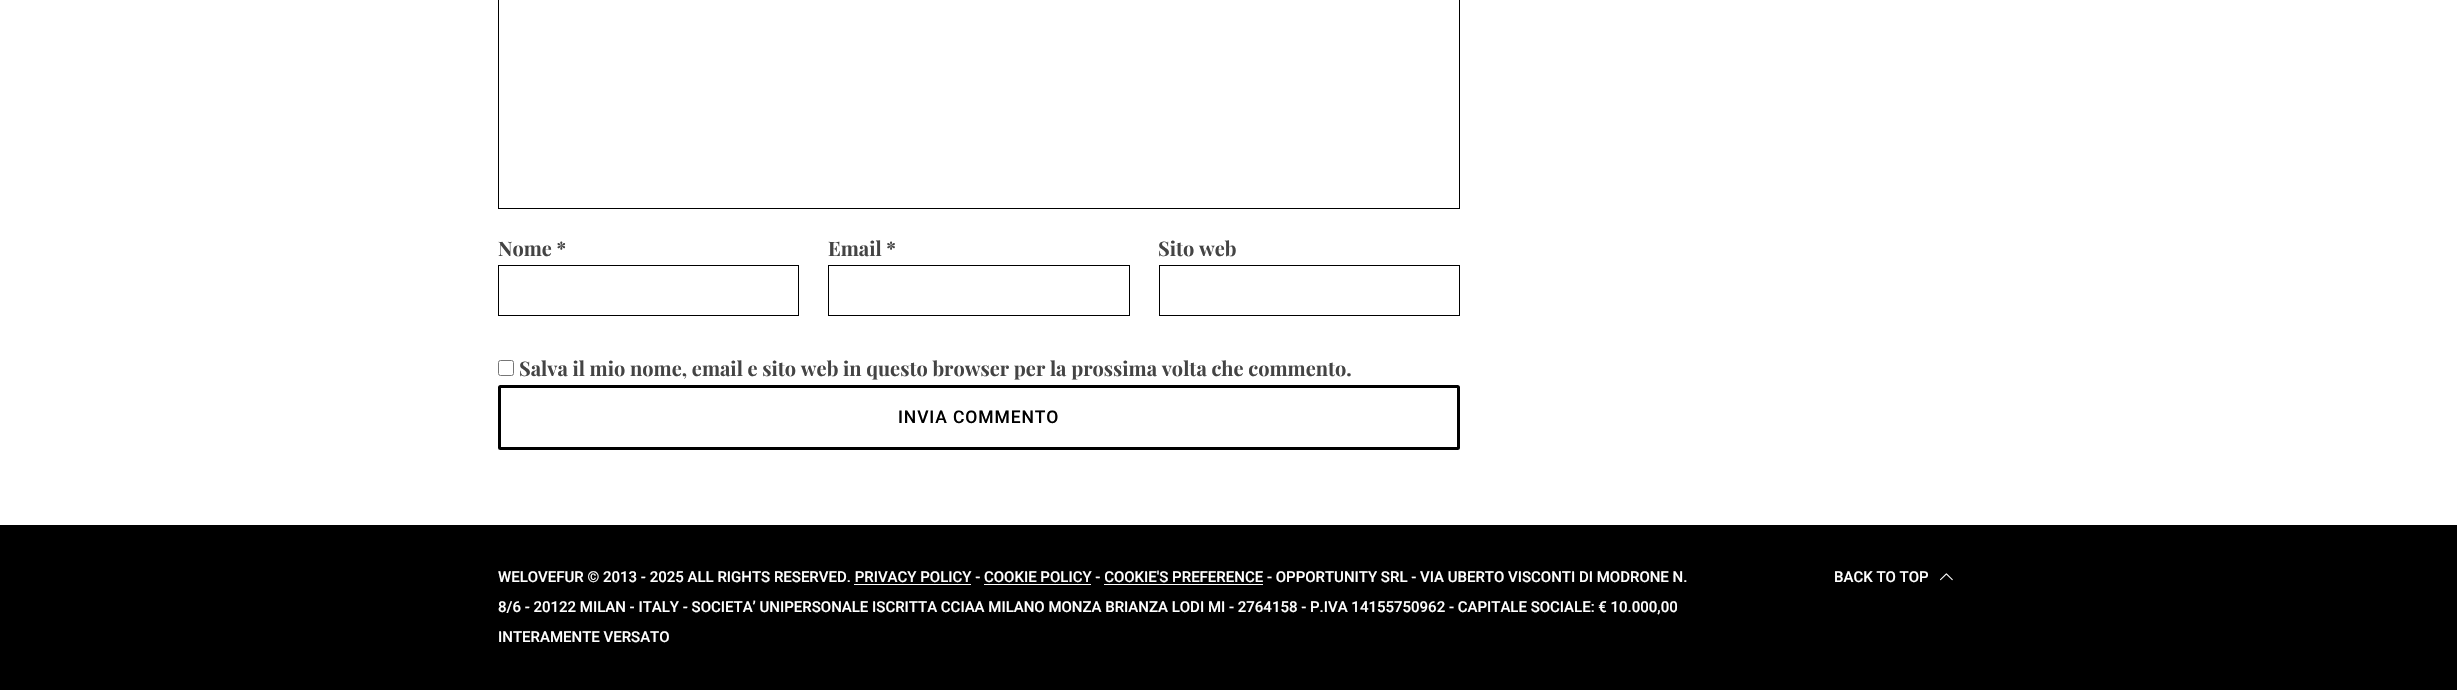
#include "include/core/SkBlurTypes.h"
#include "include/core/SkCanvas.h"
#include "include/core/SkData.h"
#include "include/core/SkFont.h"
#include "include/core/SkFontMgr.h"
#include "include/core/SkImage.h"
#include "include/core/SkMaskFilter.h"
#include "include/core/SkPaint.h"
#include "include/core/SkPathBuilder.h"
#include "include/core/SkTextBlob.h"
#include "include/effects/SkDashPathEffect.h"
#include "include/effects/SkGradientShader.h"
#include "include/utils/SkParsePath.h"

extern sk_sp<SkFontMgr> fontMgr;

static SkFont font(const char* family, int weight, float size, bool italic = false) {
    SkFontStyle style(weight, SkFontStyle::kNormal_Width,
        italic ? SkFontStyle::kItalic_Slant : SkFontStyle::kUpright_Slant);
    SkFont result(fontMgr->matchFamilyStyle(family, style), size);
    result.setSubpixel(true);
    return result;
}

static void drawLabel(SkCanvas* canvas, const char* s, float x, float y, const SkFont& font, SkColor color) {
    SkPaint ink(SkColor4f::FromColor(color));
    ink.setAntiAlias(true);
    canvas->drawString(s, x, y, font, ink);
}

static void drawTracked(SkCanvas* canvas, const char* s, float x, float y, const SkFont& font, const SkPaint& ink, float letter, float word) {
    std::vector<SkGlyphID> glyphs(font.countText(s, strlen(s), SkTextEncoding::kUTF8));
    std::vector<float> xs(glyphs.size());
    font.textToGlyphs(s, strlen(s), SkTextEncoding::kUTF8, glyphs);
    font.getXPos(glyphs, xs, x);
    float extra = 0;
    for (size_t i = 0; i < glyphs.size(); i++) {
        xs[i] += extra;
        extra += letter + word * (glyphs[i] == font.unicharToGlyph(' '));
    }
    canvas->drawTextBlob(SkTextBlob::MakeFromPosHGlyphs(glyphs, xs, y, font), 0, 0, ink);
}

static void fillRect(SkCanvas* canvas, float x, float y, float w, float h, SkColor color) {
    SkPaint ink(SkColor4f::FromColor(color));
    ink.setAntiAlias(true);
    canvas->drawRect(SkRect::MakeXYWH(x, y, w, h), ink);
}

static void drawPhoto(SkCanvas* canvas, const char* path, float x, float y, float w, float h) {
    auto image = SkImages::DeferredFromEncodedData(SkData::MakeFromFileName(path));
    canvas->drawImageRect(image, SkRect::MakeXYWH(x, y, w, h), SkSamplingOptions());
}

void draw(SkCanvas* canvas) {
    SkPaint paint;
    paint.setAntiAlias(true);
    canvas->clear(0xFFFFFFFF);
    paint.setStroke(true);
    paint.setStrokeWidth(1);
    paint.setColor(0xFF000000);
    canvas->drawRect(SkRect::MakeXYWH(498.5f, -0.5f, 961, 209), paint);
    SkFont font1 = font("Playfair Display", 700, 20);
    drawLabel(canvas, "Nome *", 498, 256, font1, 0xFF444444);
    canvas->drawRect(SkRect::MakeXYWH(498.5f, 265.5f, 300, 50), paint);
    drawLabel(canvas, "Email *", 828, 256, font1, 0xFF444444);
    canvas->drawRect(SkRect::MakeXYWH(828.5f, 265.5f, 301, 50), paint);
    drawLabel(canvas, "Sito web", 1158, 256, font1, 0xFF444444);
    canvas->drawRect(SkRect::MakeXYWH(1159.5f, 265.5f, 300, 50), paint);
    paint.setColor(0xFF767676);
    canvas->drawRoundRect(SkRect::MakeXYWH(498.5f, 360.5f, 15, 15), 2, 2, paint);
    drawLabel(canvas, "Salva il mio nome, email e sito web in questo browser per la prossima volta che commento.", 519, 376, font1, 0xFF444444);
    paint.setStrokeWidth(3);
    paint.setColor(0xFF000000);
    canvas->drawRoundRect(SkRect::MakeXYWH(499.5f, 386.5f, 959, 62), 1, 1, paint);
    SkFont font2 = font("Roboto", 500, 17.5f);
    paint.setStroke(false);
    drawTracked(canvas, "INVIA COMMENTO", 898, 423, font2, paint, 0.9f, 0);
    fillRect(canvas, 0, 525, 2457, 165, 0xFF000000);
    SkFont font3 = font("Roboto", 500, 15);
    drawLabel(canvas, "WELOVEFUR © 2013 - 2025 ALL RIGHTS RESERVED. PRIVACY POLICY - COOKIE POLICY - COOKIE'S PREFERENCE - OPPORTUNITY SRL - VIA UBERTO VISCONTI DI MODRONE N.", 498, 582, font3, 0xFFFFFFFF);
    fillRect(canvas, 854, 584, 117, 1, 0xFFFFFFFF);
    fillRect(canvas, 984, 584, 107, 1, 0xFFFFFFFF);
    fillRect(canvas, 1104, 584, 159, 1, 0xFFFFFFFF);
    drawLabel(canvas, "8/6 - 20122 MILAN - ITALY - SOCIETA’ UNIPERSONALE ISCRITTA CCIAA MILANO MONZA BRIANZA LODI MI - 2764158 - P.IVA 14155750962 - CAPITALE SOCIALE: € 10.000,00", 498, 612, font3, 0xFFFFFFFF);
    drawLabel(canvas, "INTERAMENTE VERSATO", 498, 642, font3, 0xFFFFFFFF);
    drawLabel(canvas, "BACK TO TOP", 1834, 582, font3, 0xFFFFFFFF);
    drawPhoto(canvas, "assets/img1.png", 1940, 573, 13, 8);
}
